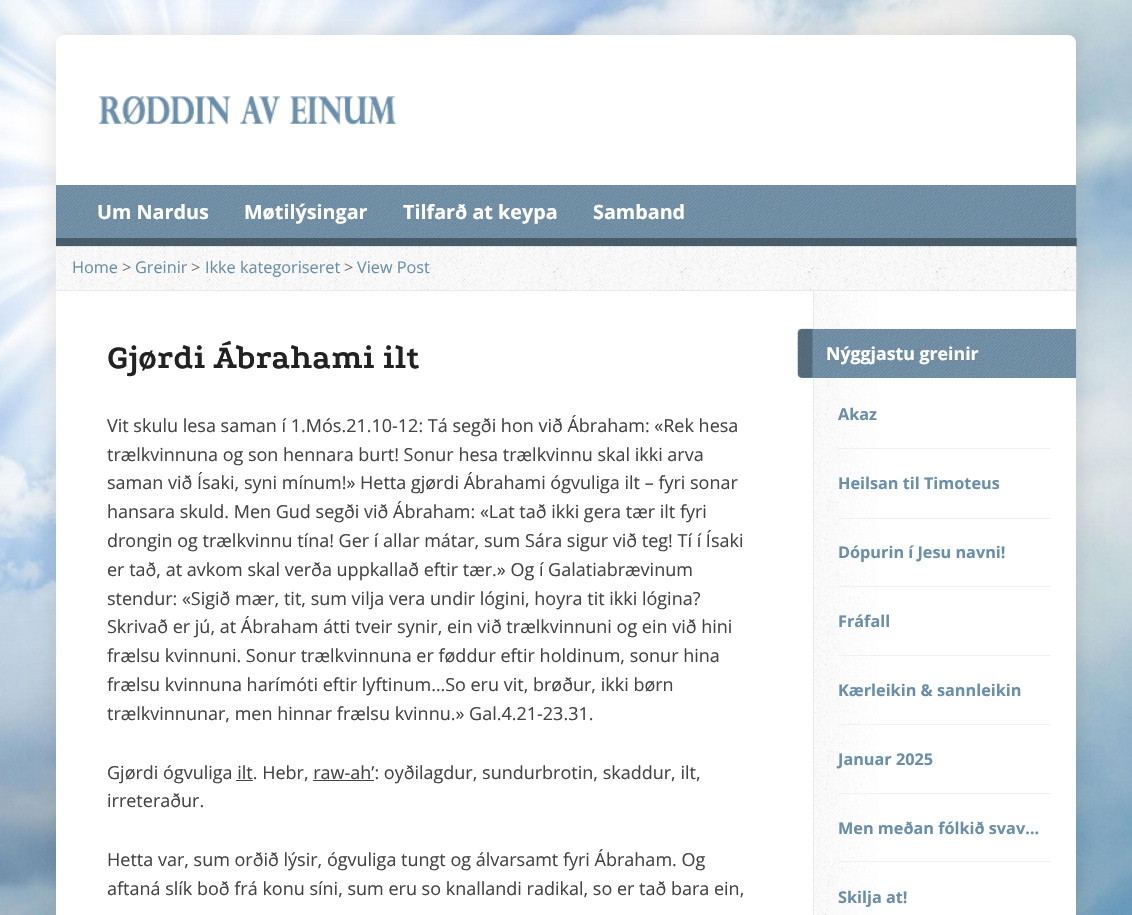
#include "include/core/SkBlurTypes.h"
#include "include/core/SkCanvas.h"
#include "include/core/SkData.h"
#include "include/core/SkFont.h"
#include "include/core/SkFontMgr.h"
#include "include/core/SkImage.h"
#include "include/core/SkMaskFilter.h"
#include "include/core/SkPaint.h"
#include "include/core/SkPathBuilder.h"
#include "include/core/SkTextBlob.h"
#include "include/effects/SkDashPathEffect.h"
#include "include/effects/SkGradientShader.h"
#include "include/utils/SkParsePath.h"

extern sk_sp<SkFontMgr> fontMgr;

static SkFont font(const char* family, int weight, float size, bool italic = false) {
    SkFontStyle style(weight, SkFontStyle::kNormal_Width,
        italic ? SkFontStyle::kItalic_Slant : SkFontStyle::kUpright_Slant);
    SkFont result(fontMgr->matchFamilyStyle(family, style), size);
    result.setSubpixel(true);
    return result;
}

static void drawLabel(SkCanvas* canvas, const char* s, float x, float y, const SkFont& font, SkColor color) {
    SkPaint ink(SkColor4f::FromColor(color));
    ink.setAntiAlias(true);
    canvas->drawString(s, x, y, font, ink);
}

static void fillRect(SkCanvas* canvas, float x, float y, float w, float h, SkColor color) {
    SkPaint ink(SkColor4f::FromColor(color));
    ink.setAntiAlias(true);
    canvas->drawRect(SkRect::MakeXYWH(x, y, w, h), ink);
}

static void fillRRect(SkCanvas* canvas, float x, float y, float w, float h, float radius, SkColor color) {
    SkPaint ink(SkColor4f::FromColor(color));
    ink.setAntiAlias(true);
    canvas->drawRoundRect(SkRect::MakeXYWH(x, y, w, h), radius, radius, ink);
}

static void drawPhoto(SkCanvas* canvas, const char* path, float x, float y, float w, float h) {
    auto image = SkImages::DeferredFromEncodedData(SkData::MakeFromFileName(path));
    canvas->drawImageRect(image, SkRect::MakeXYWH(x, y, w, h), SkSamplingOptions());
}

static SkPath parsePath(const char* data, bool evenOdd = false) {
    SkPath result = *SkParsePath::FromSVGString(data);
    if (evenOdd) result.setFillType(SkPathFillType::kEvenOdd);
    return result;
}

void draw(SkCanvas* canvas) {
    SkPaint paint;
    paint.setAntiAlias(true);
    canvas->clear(0xFFFFFFFF);
    drawPhoto(canvas, "assets/img1.png", 0, 0, 1132, 915);
    paint.setColor(0x1F000000);
    paint.setMaskFilter(SkMaskFilter::MakeBlur(kNormal_SkBlurStyle, 12.5f));
    canvas->drawRoundRect(SkRect::MakeXYWH(56, 35, 1020, 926), 8, 8, paint);
    paint.setMaskFilter(nullptr);
    fillRRect(canvas, 56, 35, 1020, 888, 8, 0xFFFFFFFF);
    drawPhoto(canvas, "assets/img2.png", 98, 96, 299, 29);
    fillRect(canvas, 56, 185, 1020, 61, 0xFF6A8FAB);
    drawPhoto(canvas, "assets/img3.png", 56, 185, 1021, 62);
    SkFont font1 = font("Open Sans", 700, 19.75f);
    drawLabel(canvas, "Um Nardus", 97, 219, font1, 0xFFFFFFFF);
    drawLabel(canvas, "Møtilýsingar", 244, 219, font1, 0xFFFFFFFF);
    drawLabel(canvas, "Tilfarð at keypa", 403, 219, font1, 0xFFFFFFFF);
    drawLabel(canvas, "Samband", 593, 219, font1, 0xFFFFFFFF);
    fillRect(canvas, 56, 238, 1021, 9, 0x59000000);
    drawPhoto(canvas, "assets/img4.png", 56, 246, 1021, 46);
    fillRect(canvas, 56, 290, 1020, 1, 0xFFEAEAEA);
    SkFont font2 = font("Open Sans", 400, 16.25f);
    drawLabel(canvas, "Home", 72, 273, font2, 0xFF6A8FAB);
    drawLabel(canvas, ">", 122, 273, font2, 0xFF777777);
    drawLabel(canvas, "Greinir", 135, 273, font2, 0xFF6A8FAB);
    drawLabel(canvas, ">", 191, 273, font2, 0xFF777777);
    drawLabel(canvas, "Ikke kategoriseret", 205, 273, font2, 0xFF6A8FAB);
    drawLabel(canvas, ">", 344, 273, font2, 0xFF777777);
    drawLabel(canvas, "View Post", 357, 273, font2, 0xFF6A8FAB);
    SkFont font3 = font("Podkova", 700, 34.25f);
    drawLabel(canvas, "Gjørdi Ábrahami ilt", 107, 368, font3, 0xFF222222);
    SkFont font4 = font("Open Sans", 400, 18);
    drawLabel(canvas, "Vit skulu lesa saman í 1.Mós.21.10-12: Tá segði hon við Ábraham: «Rek hesa", 107, 432, font4, 0xFF444444);
    drawLabel(canvas, "trælkvinnuna og son hennara burt! Sonur hesa trælkvinnu skal ikki arva", 107, 461, font4, 0xFF444444);
    drawLabel(canvas, "saman við Ísaki, syni mínum!» Hetta gjørdi Ábrahami ógvuliga ilt – fyri sonar", 107, 489, font4, 0xFF444444);
    drawLabel(canvas, "hansara skuld. Men Gud segði við Ábraham: «Lat tað ikki gera tær ilt fyri", 107, 518, font4, 0xFF444444);
    drawLabel(canvas, "drongin og trælkvinnu tína! Ger í allar mátar, sum Sára sigur við teg! Tí í Ísaki", 107, 547, font4, 0xFF444444);
    drawLabel(canvas, "er tað, at avkom skal verða uppkallað eftir tær.» Og í Galatiabrævinum", 107, 576, font4, 0xFF444444);
    drawLabel(canvas, "stendur: «Sigið mær, tit, sum vilja vera undir lógini, hoyra tit ikki lógina?", 107, 605, font4, 0xFF444444);
    drawLabel(canvas, "Skrivað er jú, at Ábraham átti tveir synir, ein við trælkvinnuni og ein við hini", 107, 633, font4, 0xFF444444);
    drawLabel(canvas, "frælsu kvinnuni. Sonur trælkvinnuna er føddur eftir holdinum, sonur hina", 107, 662, font4, 0xFF444444);
    drawLabel(canvas, "frælsu kvinnuna harímóti eftir lyftinum…So eru vit, brøður, ikki børn", 107, 691, font4, 0xFF444444);
    drawLabel(canvas, "trælkvinnunar, men hinnar frælsu kvinnu.» Gal.4.21-23.31.", 107, 720, font4, 0xFF444444);
    drawLabel(canvas, "Gjørdi ógvuliga ilt. Hebr, raw-ah’: oyðilagdur, sundurbrotin, skaddur, ilt,", 107, 779, font4, 0xFF444444);
    fillRect(canvas, 236, 780, 17, 1, 0xFF444444);
    fillRect(canvas, 313, 780, 61, 1, 0xFF444444);
    drawLabel(canvas, "irreteraður.", 107, 807, font4, 0xFF444444);
    drawLabel(canvas, "Hetta var, sum orðið lýsir, ógvuliga tungt og álvarsamt fyri Ábraham. Og", 107, 866, font4, 0xFF444444);
    drawLabel(canvas, "aftaná slík boð frá konu síni, sum eru so knallandi radikal, so er tað bara ein,", 107, 895, font4, 0xFF444444);
    drawPhoto(canvas, "assets/img5.png", 814, 291, 65, 624);
    fillRect(canvas, 813, 291, 1, 624, 0xFFEAEAEA);
    paint.setColor(0xFF6A8FAB);
    canvas->drawPath(parsePath("M802 329H1076V378H802C800 378 798 376 798 374V333C798 331 800 329 802 329Z"), paint);
    drawPhoto(canvas, "assets/img6.png", 797, 328, 280, 50);
    SkFont font5 = font("Open Sans", 700, 17.75f);
    drawLabel(canvas, "Nýggjastu greinir", 826, 360, font5, 0xFFFFFFFF);
    SkFont font6 = font("Open Sans", 700, 16.25f);
    drawLabel(canvas, "Akaz", 838, 420, font6, 0xFF6A8FAB);
    fillRect(canvas, 839, 448, 212, 1, 0xFFF1F1F1);
    drawLabel(canvas, "Heilsan til Timoteus", 838, 489, font6, 0xFF6A8FAB);
    fillRect(canvas, 839, 518, 212, 1, 0xFFF1F1F1);
    drawLabel(canvas, "Dópurin í Jesu navni!", 838, 558, font6, 0xFF6A8FAB);
    fillRect(canvas, 839, 586, 212, 1, 0xFFF1F1F1);
    drawLabel(canvas, "Fráfall", 838, 627, font6, 0xFF6A8FAB);
    fillRect(canvas, 839, 655, 212, 1, 0xFFF1F1F1);
    drawLabel(canvas, "Kærleikin & sannleikin", 838, 696, font6, 0xFF6A8FAB);
    fillRect(canvas, 839, 724, 212, 1, 0xFFF1F1F1);
    drawLabel(canvas, "Januar 2025", 838, 765, font6, 0xFF6A8FAB);
    fillRect(canvas, 839, 793, 212, 1, 0xFFF1F1F1);
    drawLabel(canvas, "Men meðan fólkið svav…", 838, 834, font6, 0xFF6A8FAB);
    fillRect(canvas, 839, 861, 212, 1, 0xFFF1F1F1);
    drawLabel(canvas, "Skilja at!", 838, 903, font6, 0xFF6A8FAB);
}
